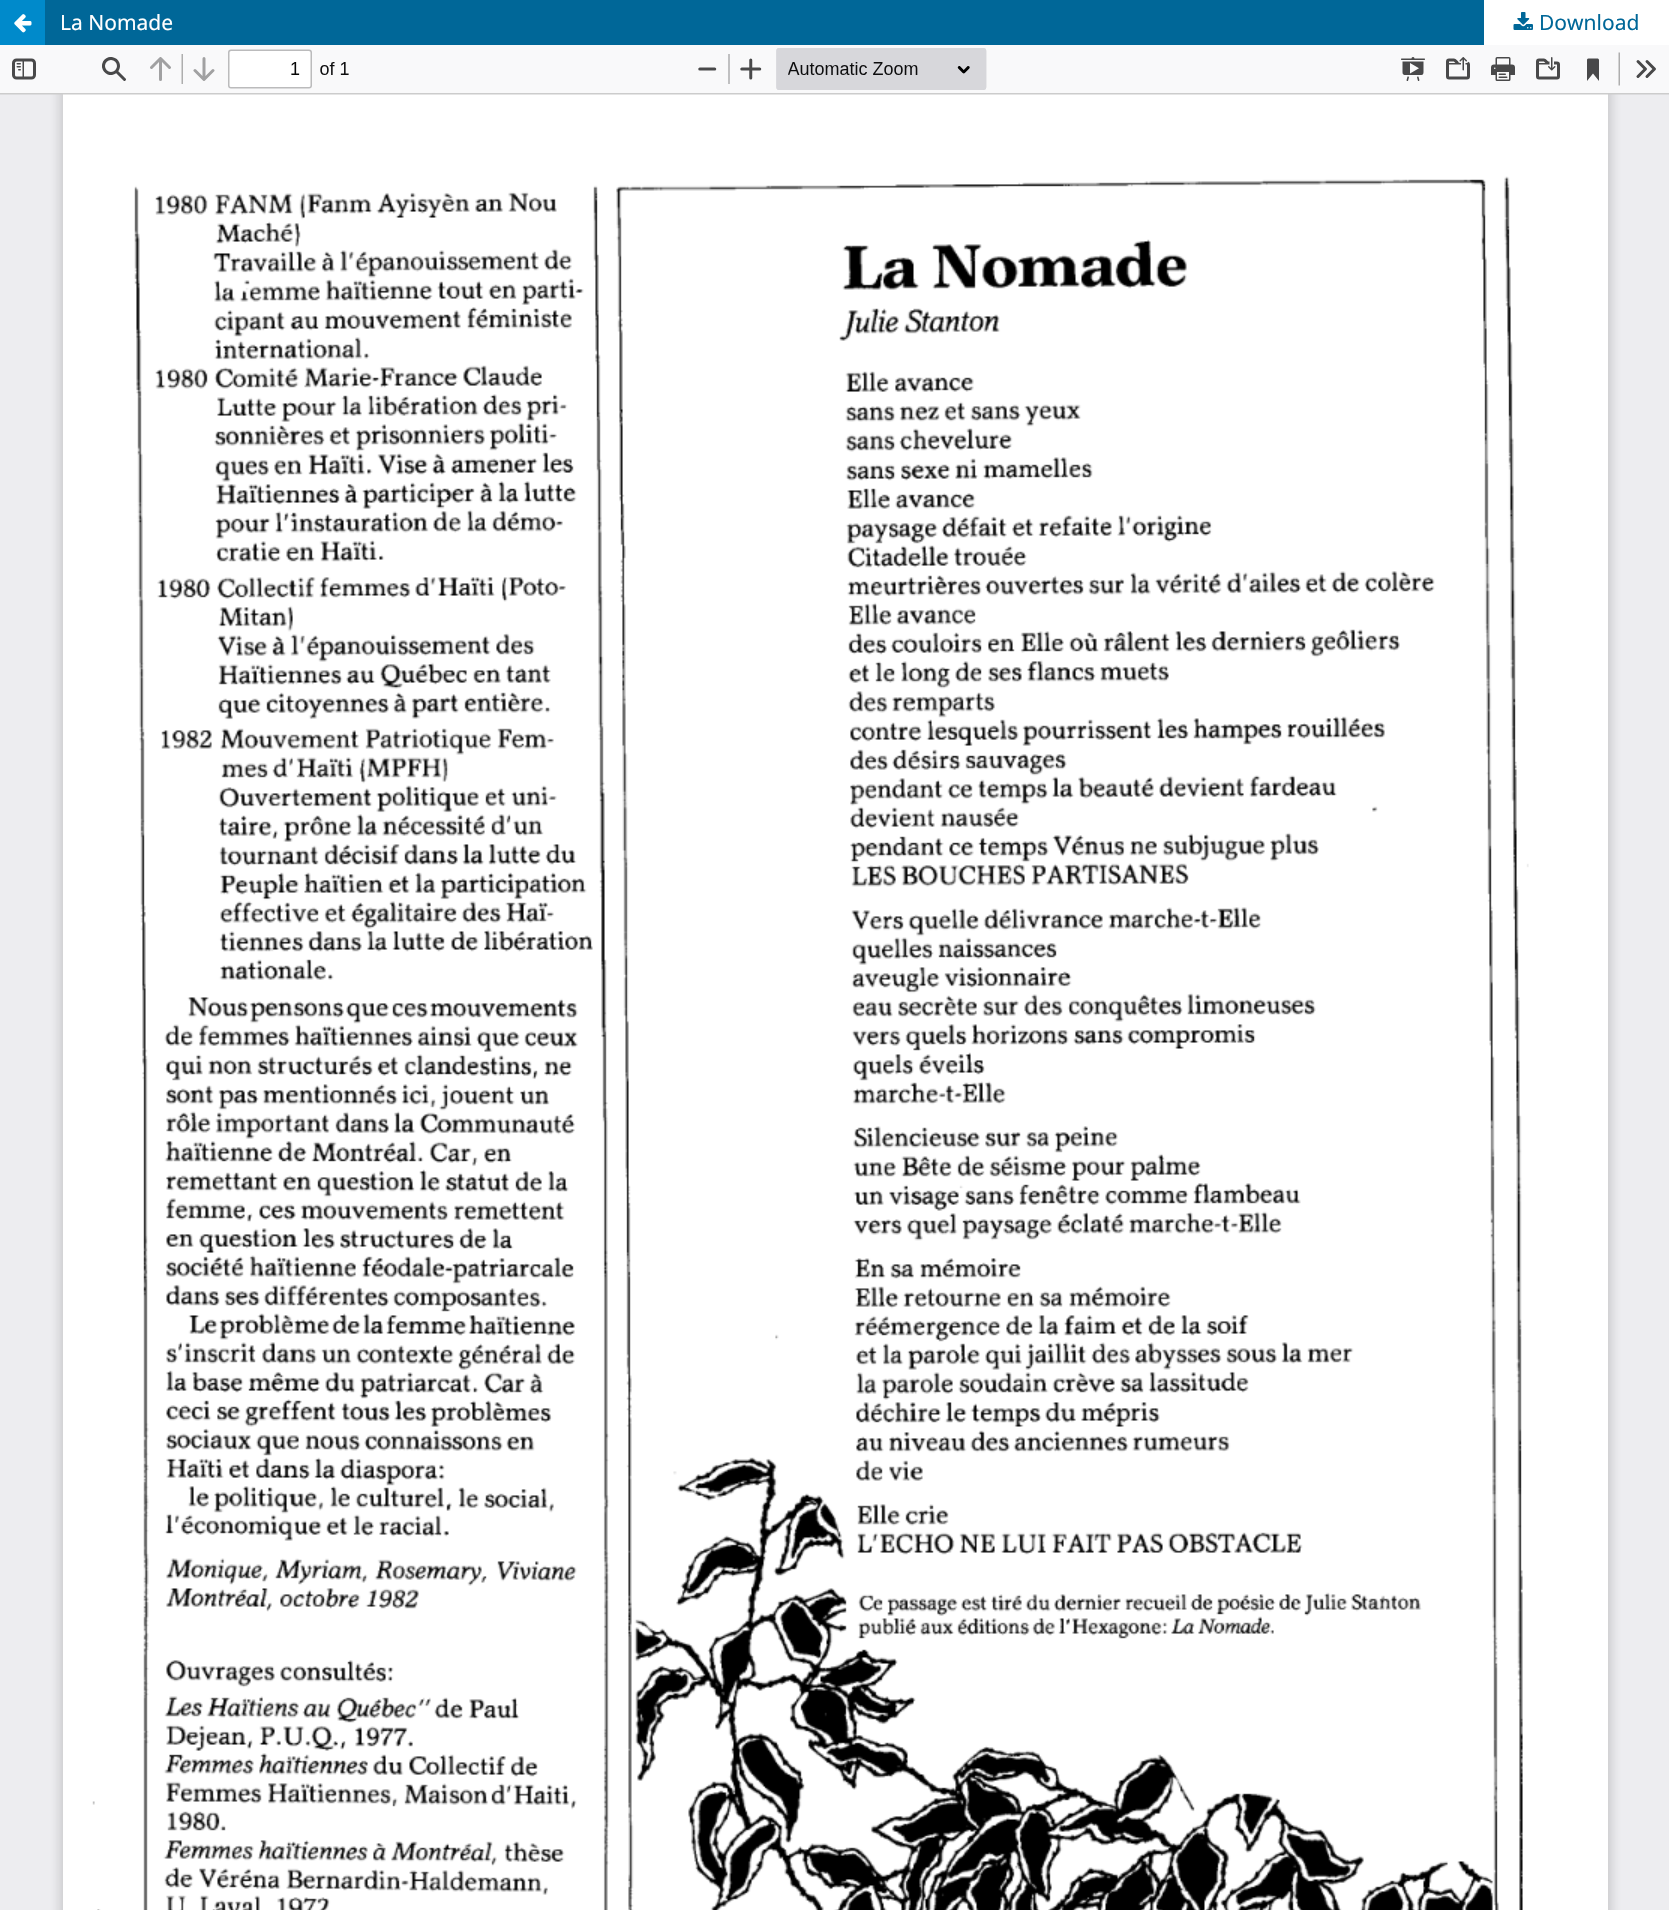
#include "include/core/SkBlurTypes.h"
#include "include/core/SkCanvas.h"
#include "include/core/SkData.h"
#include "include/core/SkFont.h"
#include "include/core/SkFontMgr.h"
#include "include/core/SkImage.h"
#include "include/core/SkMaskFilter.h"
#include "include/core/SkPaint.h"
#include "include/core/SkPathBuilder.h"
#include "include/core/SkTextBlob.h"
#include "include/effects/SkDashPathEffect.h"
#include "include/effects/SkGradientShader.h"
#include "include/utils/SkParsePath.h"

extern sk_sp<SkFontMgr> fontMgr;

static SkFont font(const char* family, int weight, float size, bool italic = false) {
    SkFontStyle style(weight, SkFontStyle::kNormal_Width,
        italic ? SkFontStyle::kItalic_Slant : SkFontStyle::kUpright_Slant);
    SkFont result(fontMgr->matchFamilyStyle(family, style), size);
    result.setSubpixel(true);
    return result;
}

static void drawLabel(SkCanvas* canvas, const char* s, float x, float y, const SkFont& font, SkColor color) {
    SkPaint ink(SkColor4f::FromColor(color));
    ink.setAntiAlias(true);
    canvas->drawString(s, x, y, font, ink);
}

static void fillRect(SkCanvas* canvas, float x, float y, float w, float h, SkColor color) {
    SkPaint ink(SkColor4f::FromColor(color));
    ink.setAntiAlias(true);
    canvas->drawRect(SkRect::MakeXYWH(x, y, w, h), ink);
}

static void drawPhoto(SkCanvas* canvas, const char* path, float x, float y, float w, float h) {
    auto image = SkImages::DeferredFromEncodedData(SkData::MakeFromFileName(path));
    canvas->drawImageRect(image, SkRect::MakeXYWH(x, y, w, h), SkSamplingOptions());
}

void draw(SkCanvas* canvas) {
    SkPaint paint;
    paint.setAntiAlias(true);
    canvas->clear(0xFFFFFFFF);
    fillRect(canvas, 45, 0, 1439, 45, 0xFF006798);
    fillRect(canvas, 0, 0, 45, 45, 0xFF008ACB);
    drawPhoto(canvas, "assets/img1.png", 14, 14, 18, 19);
    SkFont font1 = font("Noto Sans", 400, 21);
    drawLabel(canvas, "La Nomade", 60, 30, font1, 0xFFFFFFFF);
    drawPhoto(canvas, "assets/img2.png", 1513, 12, 20, 18);
    drawLabel(canvas, "Download", 1539, 30, font1, 0xFF006798);
    drawPhoto(canvas, "assets/img3.png", 0, 45, 1669, 1865);
}
